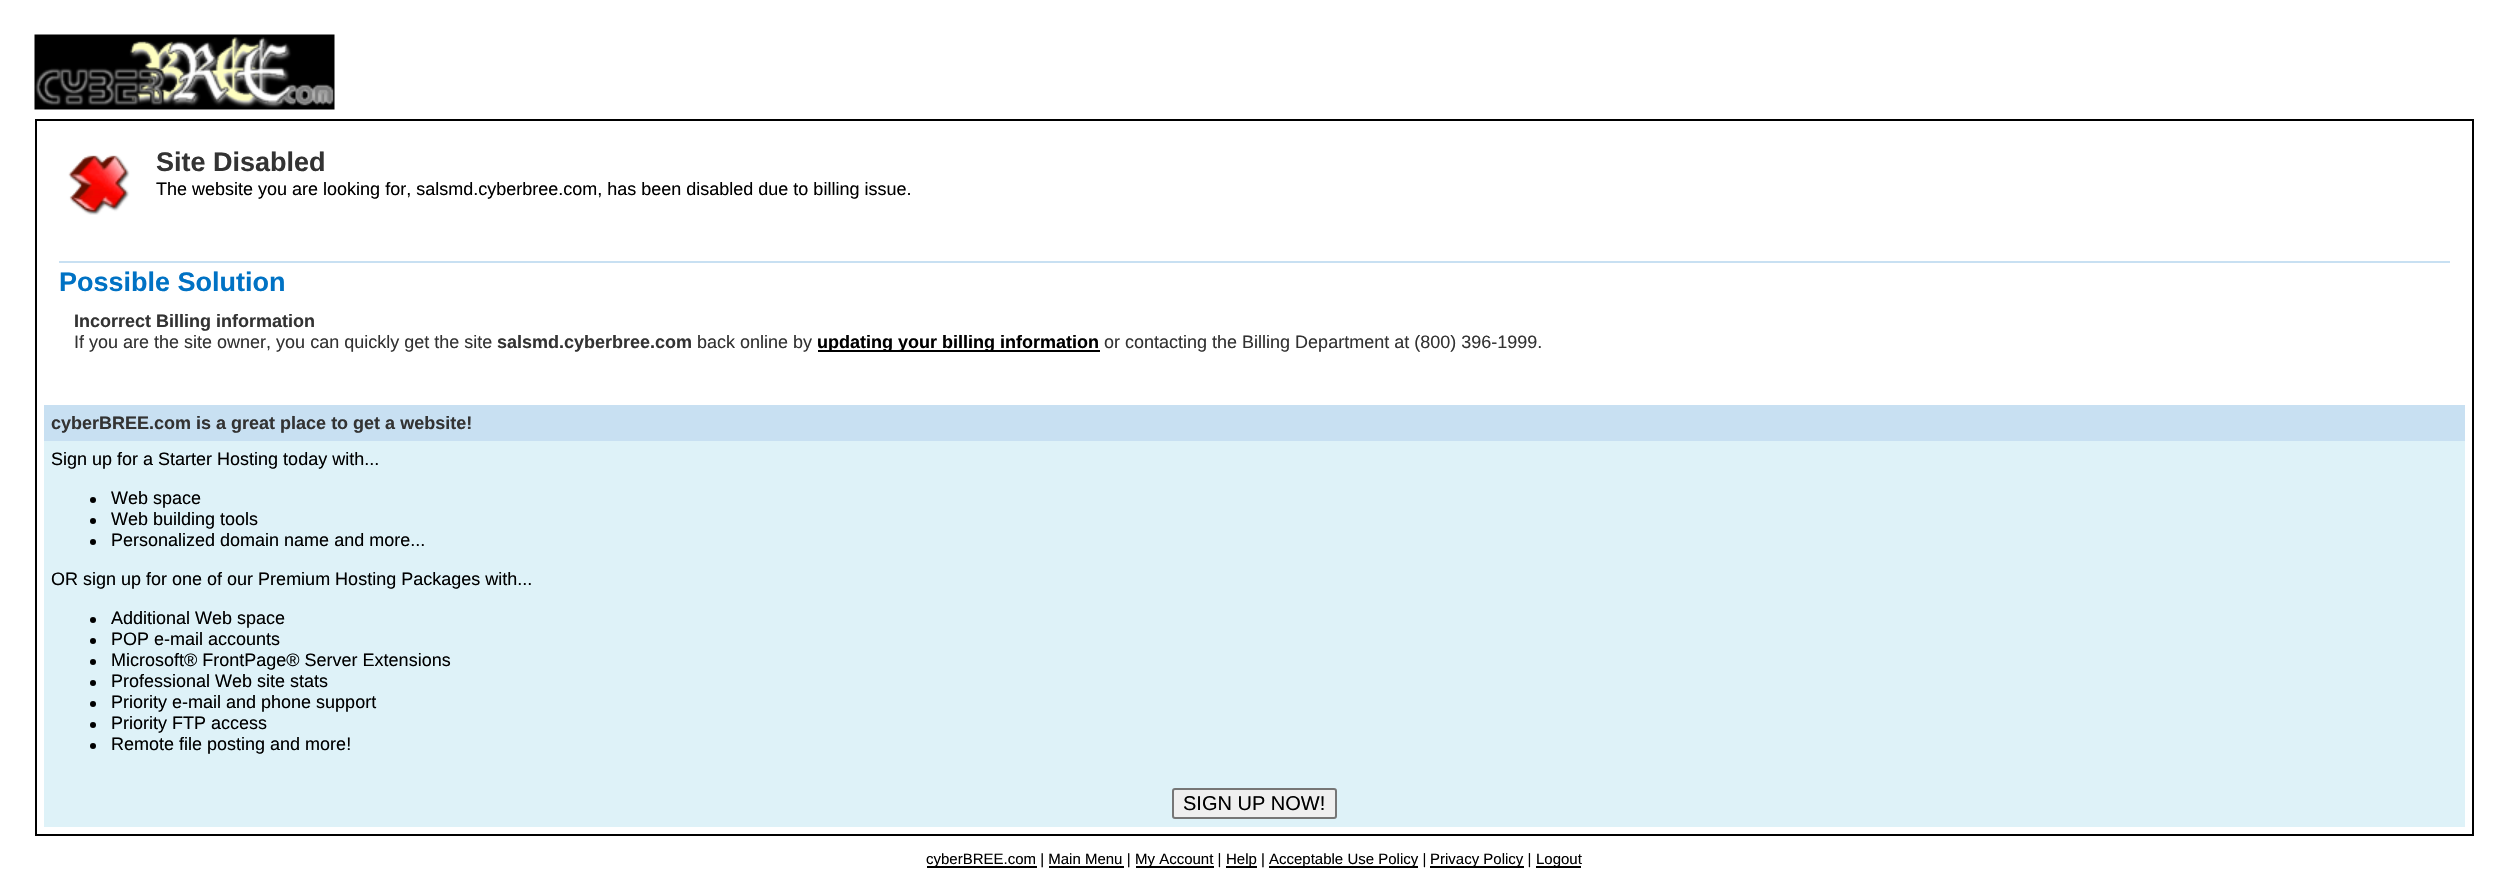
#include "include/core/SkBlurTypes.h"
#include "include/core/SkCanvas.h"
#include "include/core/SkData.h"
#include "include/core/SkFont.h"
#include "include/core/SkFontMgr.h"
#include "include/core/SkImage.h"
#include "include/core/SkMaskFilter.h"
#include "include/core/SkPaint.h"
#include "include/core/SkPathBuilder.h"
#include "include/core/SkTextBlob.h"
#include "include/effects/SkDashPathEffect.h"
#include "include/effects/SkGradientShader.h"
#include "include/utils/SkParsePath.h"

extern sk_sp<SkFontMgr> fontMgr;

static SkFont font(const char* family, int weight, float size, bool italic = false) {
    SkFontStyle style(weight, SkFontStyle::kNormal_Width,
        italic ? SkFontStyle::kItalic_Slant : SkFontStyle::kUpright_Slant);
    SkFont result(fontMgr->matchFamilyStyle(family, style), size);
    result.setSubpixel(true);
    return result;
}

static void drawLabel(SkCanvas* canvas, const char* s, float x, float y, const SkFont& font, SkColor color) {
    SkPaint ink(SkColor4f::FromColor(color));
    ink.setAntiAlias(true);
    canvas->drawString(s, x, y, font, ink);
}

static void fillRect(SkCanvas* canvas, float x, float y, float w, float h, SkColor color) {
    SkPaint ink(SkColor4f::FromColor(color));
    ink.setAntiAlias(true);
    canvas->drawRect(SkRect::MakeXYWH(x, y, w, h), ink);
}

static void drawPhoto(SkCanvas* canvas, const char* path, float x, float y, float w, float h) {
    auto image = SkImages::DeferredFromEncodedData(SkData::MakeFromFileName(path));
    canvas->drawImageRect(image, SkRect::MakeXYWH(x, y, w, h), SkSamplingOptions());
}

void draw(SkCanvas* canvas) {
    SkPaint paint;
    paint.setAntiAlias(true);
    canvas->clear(0xFFFFFFFF);
    drawPhoto(canvas, "assets/img1.png", 34, 34, 301, 76);
    paint.setStroke(true);
    paint.setStrokeWidth(2);
    paint.setColor(0xFF000000);
    canvas->drawRect(SkRect::MakeXYWH(36, 120, 2437, 715), paint);
    drawPhoto(canvas, "assets/img2.png", 68, 155, 62, 60);
    SkFont font1 = font("Liberation Sans", 700, 27);
    drawLabel(canvas, "Site Disabled", 156, 171, font1, 0xFF333333);
    SkFont font2 = font("Liberation Sans", 400, 18);
    drawLabel(canvas, "The website you are looking for, salsmd.cyberbree.com, has been disabled due to billing issue.", 156, 195, font2, 0xFF000000);
    fillRect(canvas, 59, 261, 2391, 2, 0xFFC8E0F2);
    drawLabel(canvas, "Possible Solution", 59, 291, font1, 0xFF0072C4);
    SkFont font3 = font("Liberation Sans", 700, 18);
    drawLabel(canvas, "Incorrect Billing information", 74, 327, font3, 0xFF333333);
    drawLabel(canvas, "If you are the site owner, you can quickly get the site", 74, 348, font2, 0xFF333333);
    drawLabel(canvas, "salsmd.cyberbree.com", 497, 348, font3, 0xFF333333);
    drawLabel(canvas, "back online by", 697, 348, font2, 0xFF333333);
    fillRect(canvas, 818, 350, 282, 2, 0xFF000000);
    drawLabel(canvas, "updating your billing information", 817, 348, font3, 0xFF000000);
    drawLabel(canvas, "or contacting the Billing Department at (800) 396-1999.", 1104, 348, font2, 0xFF333333);
    fillRect(canvas, 44, 405, 2421, 36, 0xFFC8E0F2);
    drawLabel(canvas, "cyberBREE.com is a great place to get a website!", 51, 429, font3, 0xFF333333);
    fillRect(canvas, 44, 441, 2421, 386, 0xFFDEF2F8);
    drawLabel(canvas, "Sign up for a Starter Hosting today with...", 51, 465, font2, 0xFF000000);
    paint.setStroke(false);
    canvas->drawCircle(93, 500, 3, paint);
    drawLabel(canvas, "Web space", 111, 504, font2, 0xFF000000);
    canvas->drawCircle(93, 521, 3, paint);
    drawLabel(canvas, "Web building tools", 111, 525, font2, 0xFF000000);
    canvas->drawCircle(93, 542, 3, paint);
    drawLabel(canvas, "Personalized domain name and more...", 111, 546, font2, 0xFF000000);
    drawLabel(canvas, "OR sign up for one of our Premium Hosting Packages with...", 51, 585, font2, 0xFF000000);
    canvas->drawCircle(93, 620, 3, paint);
    drawLabel(canvas, "Additional Web space", 111, 624, font2, 0xFF000000);
    canvas->drawCircle(93, 641, 3, paint);
    drawLabel(canvas, "POP e-mail accounts", 111, 645, font2, 0xFF000000);
    canvas->drawCircle(93, 662, 3, paint);
    drawLabel(canvas, "Microsoft® FrontPage® Server Extensions", 111, 666, font2, 0xFF000000);
    canvas->drawCircle(93, 683, 3, paint);
    drawLabel(canvas, "Professional Web site stats", 111, 687, font2, 0xFF000000);
    canvas->drawCircle(93, 704, 3, paint);
    drawLabel(canvas, "Priority e-mail and phone support", 111, 708, font2, 0xFF000000);
    canvas->drawCircle(93, 725, 3, paint);
    drawLabel(canvas, "Priority FTP access", 111, 729, font2, 0xFF000000);
    canvas->drawCircle(93, 746, 3, paint);
    drawLabel(canvas, "Remote file posting and more!", 111, 750, font2, 0xFF000000);
    paint.setColor(0xFFEFEFEF);
    canvas->drawRoundRect(SkRect::MakeXYWH(1173, 789, 163, 29), 2, 2, paint);
    paint.setStroke(true);
    paint.setColor(0xFF767676);
    canvas->drawRoundRect(SkRect::MakeXYWH(1173, 789, 163, 29), 2, 2, paint);
    SkFont font4 = font("Liberation Sans", 400, 20);
    drawLabel(canvas, "SIGN UP NOW!", 1183, 810, font4, 0xFF000000);
    fillRect(canvas, 927, 866, 110, 2, 0xFF000000);
    SkFont font5 = font("Liberation Sans", 400, 15);
    drawLabel(canvas, "cyberBREE.com | Main Menu |", 926, 864, font5, 0xFF000000);
    fillRect(canvas, 1136, 866, 78, 2, 0xFF000000);
    drawLabel(canvas, "My Account |", 1135, 864, font5, 0xFF000000);
    fillRect(canvas, 1226, 866, 31, 2, 0xFF000000);
    drawLabel(canvas, "Help |", 1226, 864, font5, 0xFF000000);
    fillRect(canvas, 1269, 866, 149, 2, 0xFF000000);
    drawLabel(canvas, "Acceptable Use Policy |", 1269, 864, font5, 0xFF000000);
    fillRect(canvas, 1430, 866, 94, 2, 0xFF000000);
    drawLabel(canvas, "Privacy Policy |", 1430, 864, font5, 0xFF000000);
    fillRect(canvas, 1536, 866, 45, 2, 0xFF000000);
    drawLabel(canvas, "Logout", 1536, 864, font5, 0xFF000000);
    fillRect(canvas, 1049, 866, 75, 2, 0xFF000000);
}
